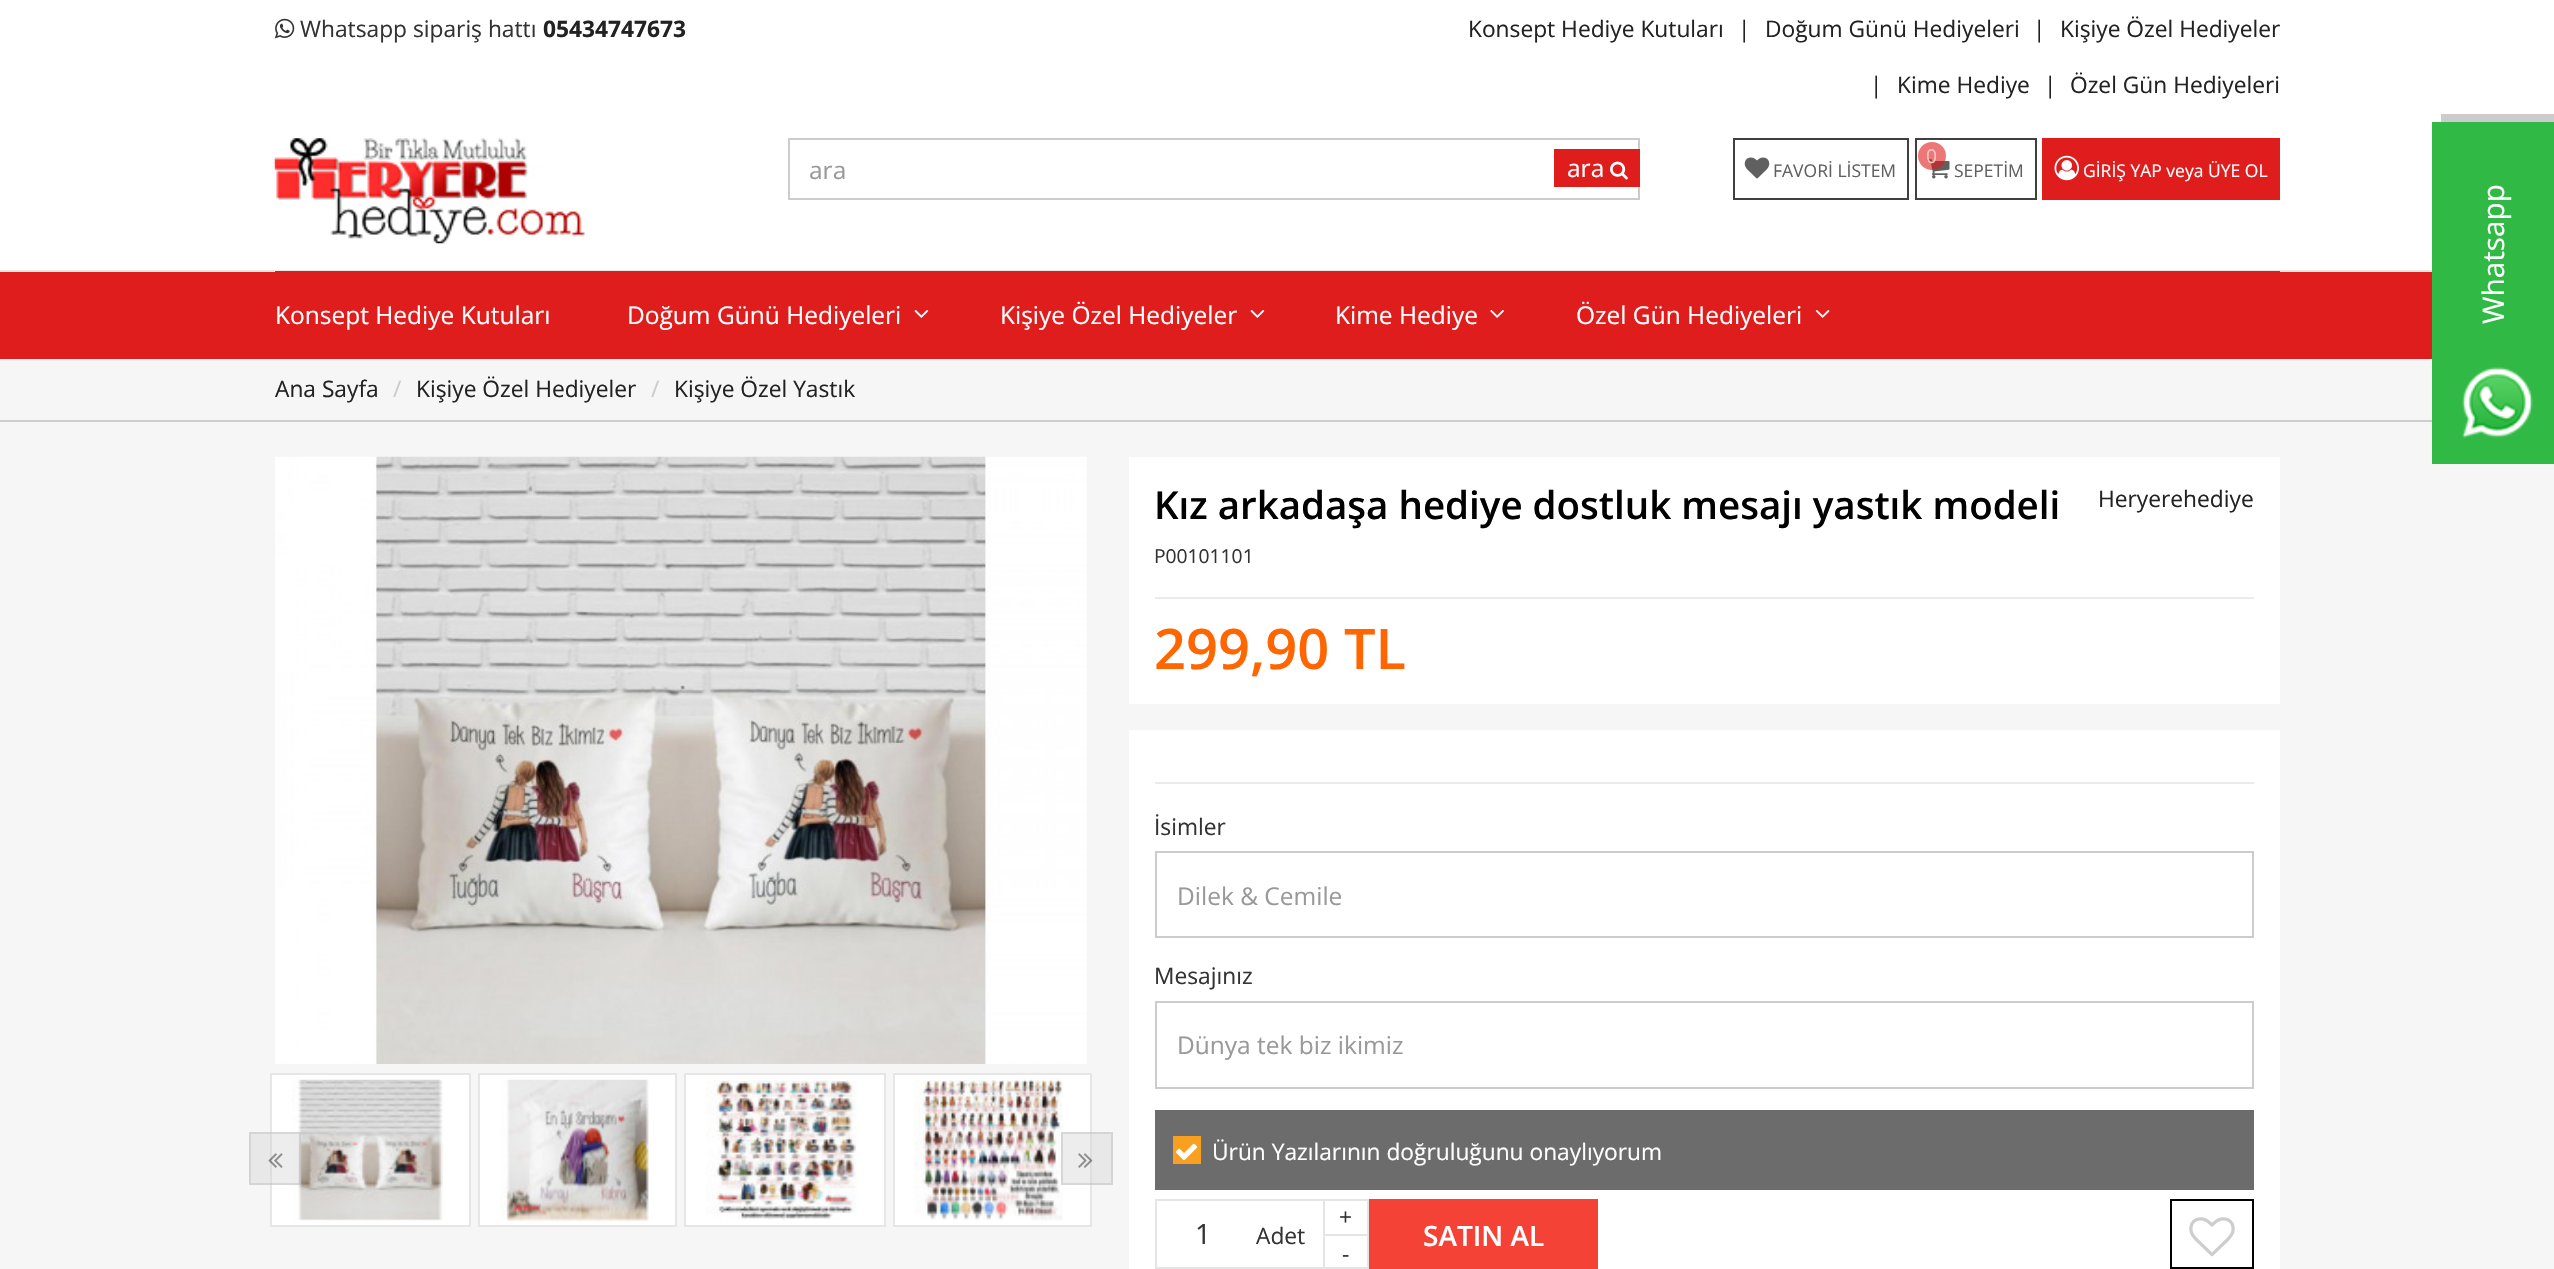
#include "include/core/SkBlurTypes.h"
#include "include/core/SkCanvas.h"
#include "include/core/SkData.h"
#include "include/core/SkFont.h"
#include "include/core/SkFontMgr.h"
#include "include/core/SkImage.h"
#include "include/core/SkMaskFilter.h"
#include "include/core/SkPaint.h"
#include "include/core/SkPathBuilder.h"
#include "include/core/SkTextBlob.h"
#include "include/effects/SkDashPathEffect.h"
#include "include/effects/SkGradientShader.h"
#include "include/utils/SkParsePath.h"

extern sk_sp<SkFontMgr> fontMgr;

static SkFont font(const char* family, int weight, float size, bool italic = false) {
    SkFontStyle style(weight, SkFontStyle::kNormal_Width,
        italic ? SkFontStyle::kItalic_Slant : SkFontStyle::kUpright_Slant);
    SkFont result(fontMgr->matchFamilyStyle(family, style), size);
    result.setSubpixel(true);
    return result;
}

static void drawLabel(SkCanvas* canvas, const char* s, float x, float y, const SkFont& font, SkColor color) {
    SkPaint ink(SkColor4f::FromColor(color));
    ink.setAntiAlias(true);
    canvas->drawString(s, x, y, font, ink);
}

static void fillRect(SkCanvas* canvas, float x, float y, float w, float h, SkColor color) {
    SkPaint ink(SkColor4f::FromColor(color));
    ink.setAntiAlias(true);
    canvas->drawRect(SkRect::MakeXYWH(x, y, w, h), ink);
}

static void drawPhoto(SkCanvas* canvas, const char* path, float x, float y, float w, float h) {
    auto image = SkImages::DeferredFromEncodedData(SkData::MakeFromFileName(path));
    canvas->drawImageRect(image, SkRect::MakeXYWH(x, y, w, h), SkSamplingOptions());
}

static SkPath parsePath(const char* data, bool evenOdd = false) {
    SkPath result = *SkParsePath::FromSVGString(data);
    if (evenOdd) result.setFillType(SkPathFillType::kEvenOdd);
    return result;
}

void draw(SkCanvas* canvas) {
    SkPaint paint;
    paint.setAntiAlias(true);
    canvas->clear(0xFFFFFFFF);
    drawPhoto(canvas, "assets/img1.png", 274, 18, 21, 21);
    SkFont font1 = font("Open Sans", 400, 22.75f);
    drawLabel(canvas, "Whatsapp sipariş hattı", 300, 37, font1, 0xFF333333);
    SkFont font2 = font("Open Sans", 700, 22.75f);
    drawLabel(canvas, "05434747673", 543, 37, font2, 0xFF222222);
    drawLabel(canvas, "Konsept Hediye Kutuları", 1468, 37, font1, 0xFF222222);
    drawLabel(canvas, "|", 1738, 37, font1, 0xFF222222);
    drawLabel(canvas, "Doğum Günü Hediyeleri", 1765, 37, font1, 0xFF222222);
    drawLabel(canvas, "|", 2033, 37, font1, 0xFF222222);
    drawLabel(canvas, "Kişiye Özel Hediyeler", 2060, 37, font1, 0xFF222222);
    drawLabel(canvas, "|", 1870, 93, font1, 0xFF222222);
    drawLabel(canvas, "Kime Hediye", 1897, 93, font1, 0xFF222222);
    drawLabel(canvas, "|", 2044, 93, font1, 0xFF222222);
    drawLabel(canvas, "Özel Gün Hediyeleri", 2070, 93, font1, 0xFF222222);
    drawPhoto(canvas, "assets/img2.png", 274, 138, 311, 106);
    paint.setStroke(true);
    paint.setStrokeWidth(2);
    paint.setColor(0xFFCCCCCC);
    canvas->drawRect(SkRect::MakeXYWH(789, 139, 850, 60), paint);
    SkFont font3 = font("Open Sans", 400, 24.5f);
    drawLabel(canvas, "ara", 809, 179, font3, 0xFF999999);
    fillRect(canvas, 1554, 149, 86, 38, 0xFFE01D1D);
    drawLabel(canvas, "ara", 1567, 177, font3, 0xFFFFFFFF);
    drawPhoto(canvas, "assets/img3.png", 1610, 161, 18, 19);
    paint.setColor(0xFF404040);
    canvas->drawRect(SkRect::MakeXYWH(1734, 139, 174, 60), paint);
    drawPhoto(canvas, "assets/img4.png", 1744, 157, 26, 22);
    SkFont font4 = font("Open Sans", 400, 17.5f);
    drawLabel(canvas, "FAVORİ LİSTEM", 1773, 177, font4, 0xFF606060);
    canvas->drawRect(SkRect::MakeXYWH(1916, 139, 120, 60), paint);
    drawPhoto(canvas, "assets/img5.png", 1926, 159, 24, 20);
    paint.setStroke(false);
    paint.setColor(0x99E01D1D);
    canvas->drawCircle(1932, 156, 14, paint);
    SkFont font5 = font("Open Sans", 400, 19.25f);
    drawLabel(canvas, "0", 1926, 163, font5, 0xFFF3C4C4);
    drawLabel(canvas, "SEPETİM", 1954, 177, font4, 0xFF606060);
    fillRect(canvas, 2042, 138, 238, 62, 0xFFE01D1D);
    drawPhoto(canvas, "assets/img6.png", 2054, 155, 25, 26);
    drawLabel(canvas, "GİRİŞ YAP veya ÜYE OL", 2083, 177, font4, 0xFFFFFFFF);
    fillRect(canvas, 0, 272, 2432, 87, 0xFFE01D1D);
    fillRect(canvas, 0, 270, 2432, 2, 0xFFE6E6E6);
    fillRect(canvas, 275, 271, 2005, 1, 0xFFE01D1D);
    drawLabel(canvas, "Konsept Hediye Kutuları", 275, 324, font3, 0xFFFFFFFF);
    drawLabel(canvas, "Doğum Günü Hediyeleri", 627, 324, font3, 0xFFFFFFFF);
    drawPhoto(canvas, "assets/img7.png", 914, 310, 15, 8);
    drawLabel(canvas, "Kişiye Özel Hediyeler", 1000, 324, font3, 0xFFFFFFFF);
    drawPhoto(canvas, "assets/img7.png", 1250, 310, 15, 8);
    drawLabel(canvas, "Kime Hediye", 1335, 324, font3, 0xFFFFFFFF);
    drawPhoto(canvas, "assets/img8.png", 1490, 310, 14, 8);
    drawLabel(canvas, "Özel Gün Hediyeleri", 1576, 324, font3, 0xFFFFFFFF);
    drawPhoto(canvas, "assets/img9.png", 1815, 310, 15, 8);
    fillRect(canvas, 0, 359, 2554, 910, 0xFFF6F6F6);
    fillRect(canvas, 0, 420, 2432, 2, 0xFFCDCDCD);
    drawLabel(canvas, "Ana Sayfa", 275, 397, font1, 0xFF222222);
    drawLabel(canvas, "/", 393, 397, font1, 0xFFCCCCCC);
    drawLabel(canvas, "Kişiye Özel Hediyeler", 416, 397, font1, 0xFF222222);
    drawLabel(canvas, "/", 651, 397, font1, 0xFFCCCCCC);
    drawLabel(canvas, "Kişiye Özel Yastık", 674, 397, font1, 0xFF222222);
    drawPhoto(canvas, "assets/img10.png", 275, 456, 812, 608);
    paint.setColor(0xFFFFFFFF);
    canvas->drawRect(SkRect::MakeXYWH(271, 1074, 199, 152), paint);
    paint.setStroke(true);
    paint.setColor(0xFFE6E6E6);
    canvas->drawRect(SkRect::MakeXYWH(271, 1074, 199, 152), paint);
    drawPhoto(canvas, "assets/img11.png", 292, 1079, 151, 142);
    paint.setStroke(false);
    paint.setColor(0xFFFFFFFF);
    canvas->drawRect(SkRect::MakeXYWH(479, 1074, 197, 152), paint);
    paint.setStroke(true);
    paint.setColor(0xFFE6E6E6);
    canvas->drawRect(SkRect::MakeXYWH(479, 1074, 197, 152), paint);
    drawPhoto(canvas, "assets/img12.png", 500, 1079, 149, 143);
    paint.setStroke(false);
    paint.setColor(0xFFFFFFFF);
    canvas->drawRect(SkRect::MakeXYWH(685, 1074, 200, 152), paint);
    paint.setStroke(true);
    paint.setColor(0xFFE6E6E6);
    canvas->drawRect(SkRect::MakeXYWH(685, 1074, 200, 152), paint);
    drawPhoto(canvas, "assets/img13.png", 706, 1079, 151, 141);
    paint.setStroke(false);
    paint.setColor(0xFFFFFFFF);
    canvas->drawRect(SkRect::MakeXYWH(894, 1074, 197, 152), paint);
    paint.setStroke(true);
    paint.setColor(0xFFE6E6E6);
    canvas->drawRect(SkRect::MakeXYWH(894, 1074, 197, 152), paint);
    drawPhoto(canvas, "assets/img14.png", 914, 1079, 149, 142);
    fillRect(canvas, 249, 1132, 52, 53, 0x66D3D3D3);
    paint.setColor(0x66B6B6B6);
    canvas->drawRect(SkRect::MakeXYWH(250, 1133, 50, 51), paint);
    drawPhoto(canvas, "assets/img15.png", 268, 1153, 15, 15);
    fillRect(canvas, 1061, 1132, 52, 53, 0x66D3D3D3);
    canvas->drawRect(SkRect::MakeXYWH(1062, 1133, 50, 51), paint);
    drawPhoto(canvas, "assets/img16.png", 1078, 1153, 15, 15);
    fillRect(canvas, 1129, 457, 1151, 247, 0xFFFFFFFF);
    SkFont font6 = font("Open Sans", 600, 38.5f);
    drawLabel(canvas, "Kız arkadaşa hediye dostluk mesajı yastık modeli", 1154, 519, font6, 0xFF000000);
    drawLabel(canvas, "Heryerehediye", 2098, 507, font1, 0xFF222222);
    drawLabel(canvas, "P00101101", 1154, 563, font5, 0xFF333333);
    fillRect(canvas, 1155, 597, 1099, 2, 0xFFEBEBEC);
    SkFont font7 = font("Open Sans", 600, 56);
    drawLabel(canvas, "299,90 TL", 1154, 669, font7, 0xFFFF6600);
    fillRect(canvas, 1129, 730, 1151, 539, 0xFFFFFFFF);
    fillRect(canvas, 1155, 782, 1099, 2, 0xFFEBEBEC);
    drawLabel(canvas, "İsimler", 1154, 835, font1, 0xFF333333);
    paint.setColor(0xFFCCCCCC);
    canvas->drawRect(SkRect::MakeXYWH(1156, 852, 1097, 85), paint);
    drawLabel(canvas, "Dilek & Cemile", 1177, 905, font3, 0xFF999999);
    drawLabel(canvas, "Mesajınız", 1154, 984, font1, 0xFF333333);
    canvas->drawRect(SkRect::MakeXYWH(1156, 1002, 1097, 86), paint);
    drawLabel(canvas, "Dünya tek biz ikimiz", 1177, 1054, font3, 0xFF999999);
    fillRect(canvas, 1155, 1110, 1099, 80, 0xFF6C6C6C);
    fillRect(canvas, 1173, 1136, 28, 28, 0xFFF9A021);
    drawPhoto(canvas, "assets/img17.png", 1175, 1143, 23, 17);
    drawLabel(canvas, "Ürün Yazılarının doğruluğunu onaylıyorum", 1212, 1160, font1, 0xFFFFFFFF);
    paint.setColor(0xFFE5E5E5);
    canvas->drawRect(SkRect::MakeXYWH(1156, 1200, 212, 68), paint);
    fillRect(canvas, 1323, 1199, 2, 35, 0xFFE5E5E5);
    drawLabel(canvas, "+", 1339, 1225, font1, 0xFF333333);
    SkFont font8 = font("Open Sans", 400, 28);
    drawLabel(canvas, "1", 1195, 1244, font8, 0xFF333333);
    drawLabel(canvas, "Adet", 1256, 1244, font1, 0xFF333333);
    fillRect(canvas, 1323, 1234, 44, 2, 0xFFE5E5E5);
    fillRect(canvas, 1323, 1234, 2, 35, 0xFFE5E5E5);
    drawLabel(canvas, "-", 1342, 1262, font1, 0xFF333333);
    fillRect(canvas, 1369, 1199, 229, 70, 0xFFF44336);
    SkFont font9 = font("Open Sans", 600, 28);
    drawLabel(canvas, "SATIN AL", 1423, 1246, font9, 0xFFFFFFFF);
    paint.setColor(0xFF000000);
    canvas->drawRect(SkRect::MakeXYWH(2171, 1200, 82, 68), paint);
    drawPhoto(canvas, "assets/img18.png", 2189, 1217, 46, 40);
    paint.setStroke(false);
    paint.setColor(0xFFCCCCCC);
    canvas->drawPath(parsePath("M2441 114V122H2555V455H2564V114Z"), paint);
    fillRect(canvas, 2432, 122, 122, 342, 0xFF30BA45);
    SkFont font10 = font("Open Sans", 400, 29.75f);
    canvas->save();
    canvas->rotate(-90, 2504, 324);
    drawLabel(canvas, "Whatsapp", 2504, 324, font10, 0xFFFFFFFF);
    canvas->restore();
    drawPhoto(canvas, "assets/img19.png", 2462, 367, 71, 71);
}
